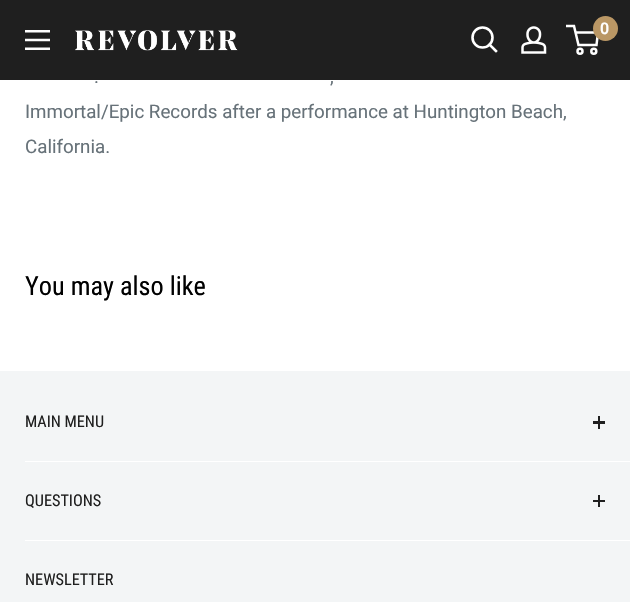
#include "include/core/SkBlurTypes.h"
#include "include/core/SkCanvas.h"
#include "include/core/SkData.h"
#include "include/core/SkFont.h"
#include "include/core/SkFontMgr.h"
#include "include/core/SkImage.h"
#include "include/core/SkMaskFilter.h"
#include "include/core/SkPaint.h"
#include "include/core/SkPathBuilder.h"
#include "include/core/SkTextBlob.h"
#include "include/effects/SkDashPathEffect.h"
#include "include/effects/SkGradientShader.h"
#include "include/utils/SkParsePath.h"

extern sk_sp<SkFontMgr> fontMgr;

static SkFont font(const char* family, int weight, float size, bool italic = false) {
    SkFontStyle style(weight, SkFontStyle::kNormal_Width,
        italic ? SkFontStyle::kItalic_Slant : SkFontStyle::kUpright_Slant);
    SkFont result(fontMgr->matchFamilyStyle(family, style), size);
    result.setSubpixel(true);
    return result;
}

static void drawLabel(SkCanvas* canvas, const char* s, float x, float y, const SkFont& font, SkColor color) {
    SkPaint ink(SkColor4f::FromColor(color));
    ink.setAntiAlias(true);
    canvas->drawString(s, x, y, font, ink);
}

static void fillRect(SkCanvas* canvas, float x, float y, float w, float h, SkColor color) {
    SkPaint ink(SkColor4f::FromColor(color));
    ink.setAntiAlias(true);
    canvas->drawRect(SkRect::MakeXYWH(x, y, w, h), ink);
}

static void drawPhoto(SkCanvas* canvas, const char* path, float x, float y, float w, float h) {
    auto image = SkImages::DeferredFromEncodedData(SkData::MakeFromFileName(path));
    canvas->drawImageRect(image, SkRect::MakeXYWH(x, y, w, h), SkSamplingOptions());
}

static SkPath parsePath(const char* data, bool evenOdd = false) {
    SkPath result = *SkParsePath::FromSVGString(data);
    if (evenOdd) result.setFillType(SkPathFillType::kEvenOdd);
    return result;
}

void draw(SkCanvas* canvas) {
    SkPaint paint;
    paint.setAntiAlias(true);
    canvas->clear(0xFFFFFFFF);
    fillRect(canvas, 0, 0, 630, 80, 0xFF1F1F1F);
    paint.setStroke(true);
    paint.setStrokeWidth(2.6f);
    paint.setStrokeCap(SkPaint::kSquare_Cap);
    paint.setColor(0xFFFFFFFF);
    canvas->drawPath(parsePath("M496 51L489.5 44.5"), paint);
    paint.setStrokeCap(SkPaint::kButt_Cap);
    canvas->drawCircle(482.5f, 37.5f, 10, paint);
    drawPhoto(canvas, "assets/img1.png", 521, 26, 26, 28);
    paint.setStrokeWidth(2.5f);
    canvas->drawCircle(580, 51.2f, 2.5f, paint);
    canvas->drawCircle(593.8f, 51.2f, 2.5f, paint);
    canvas->drawPath(parsePath("M575.5 32.5H598L596.5 45H578.5L574 26H566"), paint);
    paint.setStroke(false);
    paint.setColor(0xFFBA9765);
    canvas->drawCircle(605.5f, 28.5f, 12.5f, paint);
    SkFont font1 = font("Roboto", 600, 16);
    drawLabel(canvas, "0", 600, 34, font1, 0xFFFFFFFF);
    drawPhoto(canvas, "assets/img2.png", 25, 30, 25, 20);
    drawPhoto(canvas, "assets/img3.png", 75, 30, 163, 21);
    SkFont font2 = font("Roboto", 400, 18.75f);
    drawLabel(canvas, ".", 94, 83, font2, 0xFF677279);
    drawLabel(canvas, ",", 330, 83, font2, 0xFF677279);
    drawLabel(canvas, "Immortal/Epic Records after a performance at Huntington Beach,", 25, 118, font2, 0xFF677279);
    drawLabel(canvas, "California.", 25, 153, font2, 0xFF677279);
    SkFont font3 = font("Roboto Condensed", 400, 26.25f);
    drawLabel(canvas, "You may also like", 25, 295, font3, 0xFF000000);
    fillRect(canvas, 0, 371, 630, 231, 0xFFF3F5F6);
    fillRect(canvas, 25, 461, 605, 1, 0xFFFFFFFF);
    SkFont font4 = font("Roboto Condensed", 400, 16.25f);
    drawLabel(canvas, "MAIN MENU", 25, 427, font4, 0xFF1F1F1F);
    fillRect(canvas, 598, 416, 2, 13, 0xFF1F1F1F);
    fillRect(canvas, 593, 421, 12, 3, 0xFF1F1F1F);
    fillRect(canvas, 25, 540, 605, 1, 0xFFFFFFFF);
    drawLabel(canvas, "QUESTIONS", 25, 506, font4, 0xFF1F1F1F);
    fillRect(canvas, 598, 495, 2, 12, 0xFF1F1F1F);
    fillRect(canvas, 593, 500, 12, 2, 0xFF1F1F1F);
    drawLabel(canvas, "NEWSLETTER", 25, 585, font4, 0xFF1F1F1F);
}
